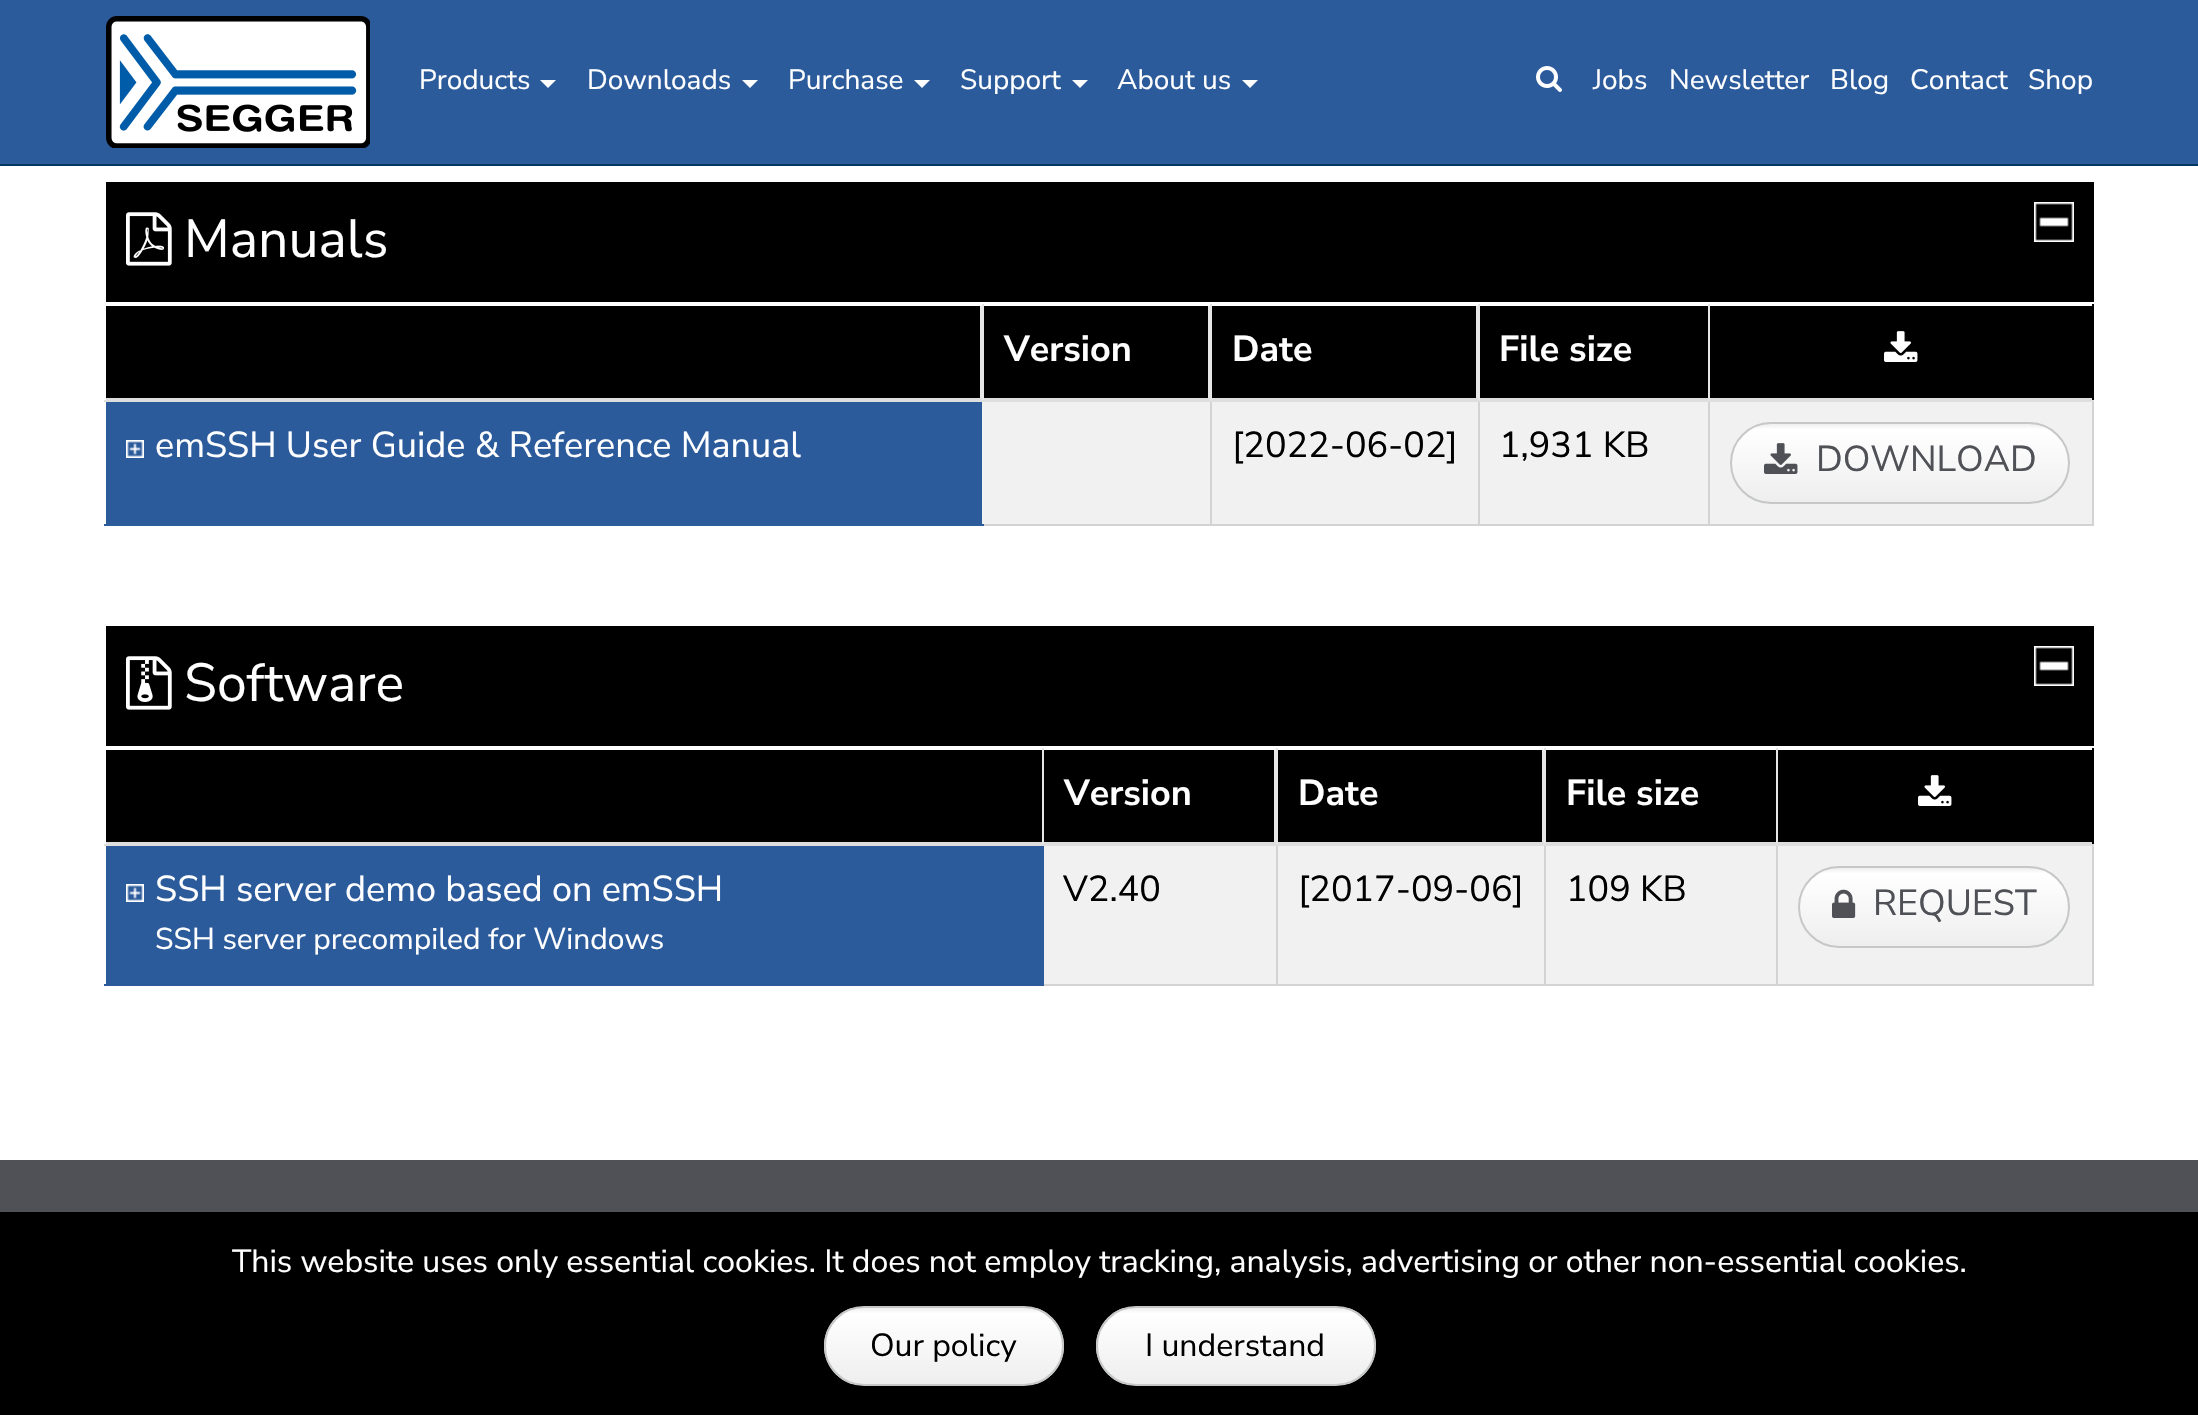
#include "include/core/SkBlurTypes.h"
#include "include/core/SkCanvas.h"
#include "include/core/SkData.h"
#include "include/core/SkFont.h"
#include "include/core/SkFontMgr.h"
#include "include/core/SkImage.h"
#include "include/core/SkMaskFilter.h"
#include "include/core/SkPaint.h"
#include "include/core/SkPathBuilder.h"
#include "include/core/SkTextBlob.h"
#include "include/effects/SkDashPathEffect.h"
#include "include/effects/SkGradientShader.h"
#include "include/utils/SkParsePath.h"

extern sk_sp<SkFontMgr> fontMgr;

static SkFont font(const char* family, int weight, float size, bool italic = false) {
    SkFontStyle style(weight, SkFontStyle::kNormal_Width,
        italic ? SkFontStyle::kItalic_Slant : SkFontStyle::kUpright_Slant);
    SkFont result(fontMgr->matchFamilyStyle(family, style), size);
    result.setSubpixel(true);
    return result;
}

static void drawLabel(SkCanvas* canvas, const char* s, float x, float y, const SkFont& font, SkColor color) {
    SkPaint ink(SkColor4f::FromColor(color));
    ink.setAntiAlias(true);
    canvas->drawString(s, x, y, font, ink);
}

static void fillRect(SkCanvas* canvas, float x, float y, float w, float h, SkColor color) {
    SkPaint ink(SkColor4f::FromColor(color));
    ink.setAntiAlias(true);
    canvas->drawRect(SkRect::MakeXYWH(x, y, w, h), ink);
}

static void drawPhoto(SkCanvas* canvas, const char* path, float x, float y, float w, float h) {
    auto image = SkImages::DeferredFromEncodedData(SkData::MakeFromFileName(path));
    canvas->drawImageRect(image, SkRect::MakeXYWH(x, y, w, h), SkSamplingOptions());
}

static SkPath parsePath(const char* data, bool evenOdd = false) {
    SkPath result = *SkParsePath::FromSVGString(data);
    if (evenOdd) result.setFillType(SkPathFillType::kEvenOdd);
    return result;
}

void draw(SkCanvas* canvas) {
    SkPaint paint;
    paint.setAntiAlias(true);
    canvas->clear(0xFFFFFFFF);
    fillRect(canvas, 0, 0, 2198, 164, 0xFF2C5B9C);
    drawPhoto(canvas, "assets/img1.png", 106, 16, 264, 132);
    SkFont font1 = font("Nunito Sans", 400, 28);
    drawLabel(canvas, "Products", 419, 89, font1, 0xFFFFFFFF);
    paint.setColor(0xFFFFFFFF);
    canvas->drawPath(parsePath("M540 80H556L548 88Z"), paint);
    drawLabel(canvas, "Downloads", 587, 89, font1, 0xFFFFFFFF);
    canvas->drawPath(parsePath("M742 80H758L750 88Z"), paint);
    drawLabel(canvas, "Purchase", 788, 89, font1, 0xFFFFFFFF);
    canvas->drawPath(parsePath("M914 80H930L922 88Z"), paint);
    drawLabel(canvas, "Support", 960, 89, font1, 0xFFFFFFFF);
    canvas->drawPath(parsePath("M1072 80H1088L1080 88Z"), paint);
    drawLabel(canvas, "About us", 1117, 89, font1, 0xFFFFFFFF);
    canvas->drawPath(parsePath("M1242 80H1258L1250 88Z"), paint);
    drawPhoto(canvas, "assets/img2.png", 1536, 66, 26, 26);
    drawLabel(canvas, "Jobs", 1593, 89, font1, 0xFFFFFFFF);
    drawLabel(canvas, "Newsletter", 1669, 89, font1, 0xFFFFFFFF);
    drawLabel(canvas, "Blog", 1830, 89, font1, 0xFFFFFFFF);
    drawLabel(canvas, "Contact", 1910, 89, font1, 0xFFFFFFFF);
    drawLabel(canvas, "Shop", 2028, 89, font1, 0xFFFFFFFF);
    fillRect(canvas, 0, 164, 2198, 2, 0xFF003761);
    fillRect(canvas, 106, 182, 1988, 120, 0xFF000000);
    drawPhoto(canvas, "assets/img3.png", 126, 212, 46, 54);
    SkFont font2 = font("Nunito Sans", 400, 53.5f);
    drawLabel(canvas, "Manuals", 184, 257, font2, 0xFFFFFFFF);
    drawPhoto(canvas, "assets/img4.png", 2034, 202, 40, 40);
    fillRect(canvas, 2092, 402, 2, 124, 0xFFD3D3D3);
    fillRect(canvas, 984, 524, 1110, 2, 0xFFD3D3D3);
    fillRect(canvas, 106, 306, 874, 92, 0xFF000000);
    fillRect(canvas, 980, 306, 2, 94, 0xFFE6E6E6);
    fillRect(canvas, 106, 398, 876, 2, 0xFFDEDEDE);
    fillRect(canvas, 1208, 306, 2, 94, 0xFFE6E6E6);
    fillRect(canvas, 982, 398, 228, 2, 0xFFDEDEDE);
    fillRect(canvas, 1476, 306, 2, 94, 0xFFE6E6E6);
    fillRect(canvas, 1210, 398, 882, 2, 0xFFDEDEDE);
    fillRect(canvas, 2092, 304, 2, 98, 0xFF000000);
    fillRect(canvas, 982, 402, 1110, 122, 0xFFF1F1F1);
    fillRect(canvas, 1708, 400, 2, 126, 0xFFD3D3D3);
    fillRect(canvas, 1708, 400, 386, 2, 0xFFDEDEDE);
    fillRect(canvas, 1708, 304, 2, 98, 0xFFE6E6E6);
    fillRect(canvas, 1478, 400, 2, 126, 0xFFD3D3D3);
    fillRect(canvas, 1478, 400, 232, 2, 0xFFDEDEDE);
    fillRect(canvas, 1478, 304, 2, 98, 0xFFE6E6E6);
    fillRect(canvas, 1210, 400, 2, 126, 0xFFD3D3D3);
    fillRect(canvas, 1210, 400, 270, 2, 0xFFDEDEDE);
    fillRect(canvas, 1210, 304, 2, 98, 0xFFE6E6E6);
    fillRect(canvas, 982, 400, 230, 2, 0xFFDEDEDE);
    fillRect(canvas, 982, 304, 2, 98, 0xFFE6E6E6);
    fillRect(canvas, 104, 400, 880, 2, 0xFFDEDEDE);
    fillRect(canvas, 984, 306, 224, 92, 0xFF000000);
    SkFont font3 = font("Nunito Sans", 700, 36);
    drawLabel(canvas, "Version", 1004, 361, font3, 0xFFFFFFFF);
    fillRect(canvas, 1212, 306, 264, 92, 0xFF000000);
    drawLabel(canvas, "Date", 1232, 361, font3, 0xFFFFFFFF);
    fillRect(canvas, 1480, 306, 228, 92, 0xFF000000);
    drawLabel(canvas, "File size", 1499, 361, font3, 0xFFFFFFFF);
    fillRect(canvas, 1710, 306, 382, 92, 0xFF000000);
    drawPhoto(canvas, "assets/img5.png", 1884, 331, 34, 31);
    fillRect(canvas, 106, 402, 876, 122, 0xFF2C5B9C);
    fillRect(canvas, 104, 524, 880, 2, 0xFF2C5B9C);
    drawPhoto(canvas, "assets/img6.png", 126, 440, 18, 18);
    SkFont font4 = font("Nunito Sans", 400, 36);
    drawLabel(canvas, "emSSH User Guide & Reference Manual", 155, 457, font4, 0xFFFFFFFF);
    drawLabel(canvas, "[2022-06-02]", 1232, 457, font4, 0xFF000000);
    drawLabel(canvas, "1,931 KB", 1499, 457, font4, 0xFF000000);
    canvas->save();
    canvas->clipPath(parsePath("M1771 422H2029C2051.5 422 2070 440.5 2070 463C2070 485.5 2051.5 504 2029 504H1771C1748.5 504 1730 485.5 1730 463C1730 440.5 1748.5 422 1771 422Z"), true);
    {
        const SkColor colors[] = {0xFFEEEEEE, 0xFFFFFFFF, 0xFFEEEEEE};
        const float stops[] = {0, 0.07f, 1};
        const SkPoint ends[] = {{1900, 424}, {1900, 502}};
        paint.setShader(SkGradientShader::MakeLinear(ends, colors, stops, 3, SkTileMode::kClamp));
        paint.setAlpha(255);
    }
    canvas->drawRect(SkRect::MakeXYWH(1730, 424, 340, 78), paint);
    canvas->restore();
    paint.setStroke(true);
    paint.setStrokeWidth(2);
    paint.setShader(nullptr);
    paint.setColor(0xFFC5C7C9);
    canvas->drawRoundRect(SkRect::MakeXYWH(1731, 423, 338, 80), 40, 40, paint);
    drawPhoto(canvas, "assets/img7.png", 1764, 443, 34, 31);
    drawLabel(canvas, "DOWNLOAD", 1816, 471, font4, 0xFF4F5157);
    fillRect(canvas, 106, 626, 1988, 120, 0xFF000000);
    drawPhoto(canvas, "assets/img8.png", 126, 656, 46, 54);
    drawLabel(canvas, "Software", 184, 701, font2, 0xFFFFFFFF);
    drawPhoto(canvas, "assets/img4.png", 2034, 646, 40, 40);
    fillRect(canvas, 2092, 846, 2, 140, 0xFFD3D3D3);
    fillRect(canvas, 1044, 984, 1050, 2, 0xFFD3D3D3);
    fillRect(canvas, 106, 750, 936, 92, 0xFF000000);
    fillRect(canvas, 106, 842, 938, 2, 0xFFDEDEDE);
    fillRect(canvas, 1542, 750, 2, 94, 0xFFE6E6E6);
    fillRect(canvas, 1276, 842, 816, 2, 0xFFDEDEDE);
    fillRect(canvas, 2092, 748, 2, 98, 0xFF000000);
    fillRect(canvas, 1044, 846, 1048, 138, 0xFFF1F1F1);
    fillRect(canvas, 1776, 844, 2, 142, 0xFFD3D3D3);
    fillRect(canvas, 1776, 844, 318, 2, 0xFFDEDEDE);
    fillRect(canvas, 1776, 748, 2, 98, 0xFFE6E6E6);
    fillRect(canvas, 1544, 844, 2, 142, 0xFFD3D3D3);
    fillRect(canvas, 1544, 844, 234, 2, 0xFFDEDEDE);
    fillRect(canvas, 1544, 748, 2, 98, 0xFFE6E6E6);
    fillRect(canvas, 1276, 844, 2, 142, 0xFFD3D3D3);
    fillRect(canvas, 1276, 844, 270, 2, 0xFFDEDEDE);
    fillRect(canvas, 1276, 748, 2, 98, 0xFFE6E6E6);
    fillRect(canvas, 1042, 844, 236, 2, 0xFFDEDEDE);
    fillRect(canvas, 1042, 748, 2, 98, 0xFFE6E6E6);
    fillRect(canvas, 104, 844, 940, 2, 0xFFDEDEDE);
    fillRect(canvas, 1044, 750, 230, 92, 0xFF000000);
    fillRect(canvas, 1274, 750, 2, 94, 0xFFE6E6E6);
    fillRect(canvas, 1044, 842, 232, 2, 0xFFDEDEDE);
    drawLabel(canvas, "Version", 1064, 805, font3, 0xFFFFFFFF);
    fillRect(canvas, 1278, 750, 264, 92, 0xFF000000);
    drawLabel(canvas, "Date", 1298, 805, font3, 0xFFFFFFFF);
    fillRect(canvas, 1546, 750, 230, 92, 0xFF000000);
    drawLabel(canvas, "File size", 1566, 805, font3, 0xFFFFFFFF);
    fillRect(canvas, 1778, 750, 314, 92, 0xFF000000);
    drawPhoto(canvas, "assets/img5.png", 1918, 775, 34, 31);
    fillRect(canvas, 106, 846, 938, 138, 0xFF2C5B9C);
    fillRect(canvas, 104, 984, 940, 2, 0xFF2C5B9C);
    drawPhoto(canvas, "assets/img6.png", 126, 884, 18, 18);
    drawLabel(canvas, "SSH server demo based on emSSH", 155, 901, font4, 0xFFFFFFFF);
    SkFont font5 = font("Nunito Sans", 400, 30);
    drawLabel(canvas, "SSH server precompiled for Windows", 155, 949, font5, 0xFFFFFFFF);
    drawLabel(canvas, "V2.40", 1063, 901, font4, 0xFF000000);
    drawLabel(canvas, "[2017-09-06]", 1298, 901, font4, 0xFF000000);
    drawLabel(canvas, "109 KB", 1566, 901, font4, 0xFF000000);
    canvas->save();
    canvas->clipPath(parsePath("M1839 866H2029C2051.5 866 2070 884.5 2070 907C2070 929.5 2051.5 948 2029 948H1839C1816.5 948 1798 929.5 1798 907C1798 884.5 1816.5 866 1839 866Z"), true);
    paint.setStroke(false);
    {
        const SkColor colors[] = {0xFFEEEEEE, 0xFFFFFFFF, 0xFFEEEEEE};
        const float stops[] = {0, 0.07f, 1};
        const SkPoint ends[] = {{1934, 868}, {1934, 946}};
        paint.setShader(SkGradientShader::MakeLinear(ends, colors, stops, 3, SkTileMode::kClamp));
        paint.setAlpha(255);
    }
    canvas->drawRect(SkRect::MakeXYWH(1798, 868, 272, 78), paint);
    canvas->restore();
    paint.setStroke(true);
    paint.setShader(nullptr);
    paint.setColor(0xFFC5C7C9);
    canvas->drawRoundRect(SkRect::MakeXYWH(1799, 867, 270, 80), 40, 40, paint);
    drawPhoto(canvas, "assets/img9.png", 1832, 889, 24, 29);
    drawLabel(canvas, "REQUEST", 1873, 915, font4, 0xFF4F5157);
    fillRect(canvas, 0, 1160, 2198, 52, 0xFF4F5157);
    fillRect(canvas, 0, 1212, 2198, 203, 0xFF000000);
    SkFont font6 = font("Nunito Sans", 400, 32);
    drawLabel(canvas, "This website uses only essential cookies. It does not employ tracking, analysis, advertising or other non-essential cookies.", 232, 1272, font6, 0xFFFFFFFF);
    canvas->save();
    canvas->clipPath(parsePath("M864 1306H1024C1046 1306 1064 1324 1064 1346C1064 1368 1046 1386 1024 1386H864C842 1386 824 1368 824 1346C824 1324 842 1306 864 1306Z"), true);
    paint.setStroke(false);
    {
        const SkColor colors[] = {0xFFEEEEEE, 0xFFFFFFFF, 0xFFEEEEEE};
        const float stops[] = {0, 0.07f, 1};
        const SkPoint ends[] = {{944, 1308}, {944, 1384}};
        paint.setShader(SkGradientShader::MakeLinear(ends, colors, stops, 3, SkTileMode::kClamp));
        paint.setAlpha(255);
    }
    canvas->drawRect(SkRect::MakeXYWH(824, 1308, 240, 76), paint);
    canvas->restore();
    paint.setStroke(true);
    paint.setShader(nullptr);
    paint.setColor(0xFFC5C7C9);
    canvas->drawRoundRect(SkRect::MakeXYWH(825, 1307, 238, 78), 39, 39, paint);
    drawLabel(canvas, "Our policy", 870, 1356, font6, 0xFF000000);
    canvas->save();
    canvas->clipPath(parsePath("M1136 1306H1336C1358 1306 1376 1324 1376 1346C1376 1368 1358 1386 1336 1386H1136C1114 1386 1096 1368 1096 1346C1096 1324 1114 1306 1136 1306Z"), true);
    paint.setStroke(false);
    {
        const SkColor colors[] = {0xFFEEEEEE, 0xFFFFFFFF, 0xFFEEEEEE};
        const float stops[] = {0, 0.07f, 1};
        const SkPoint ends[] = {{1236, 1308}, {1236, 1384}};
        paint.setShader(SkGradientShader::MakeLinear(ends, colors, stops, 3, SkTileMode::kClamp));
        paint.setAlpha(255);
    }
    canvas->drawRect(SkRect::MakeXYWH(1096, 1308, 280, 76), paint);
    canvas->restore();
    paint.setStroke(true);
    paint.setShader(nullptr);
    paint.setColor(0xFFC5C7C9);
    canvas->drawRoundRect(SkRect::MakeXYWH(1097, 1307, 278, 78), 39, 39, paint);
    drawLabel(canvas, "I understand", 1145, 1356, font6, 0xFF000000);
}
